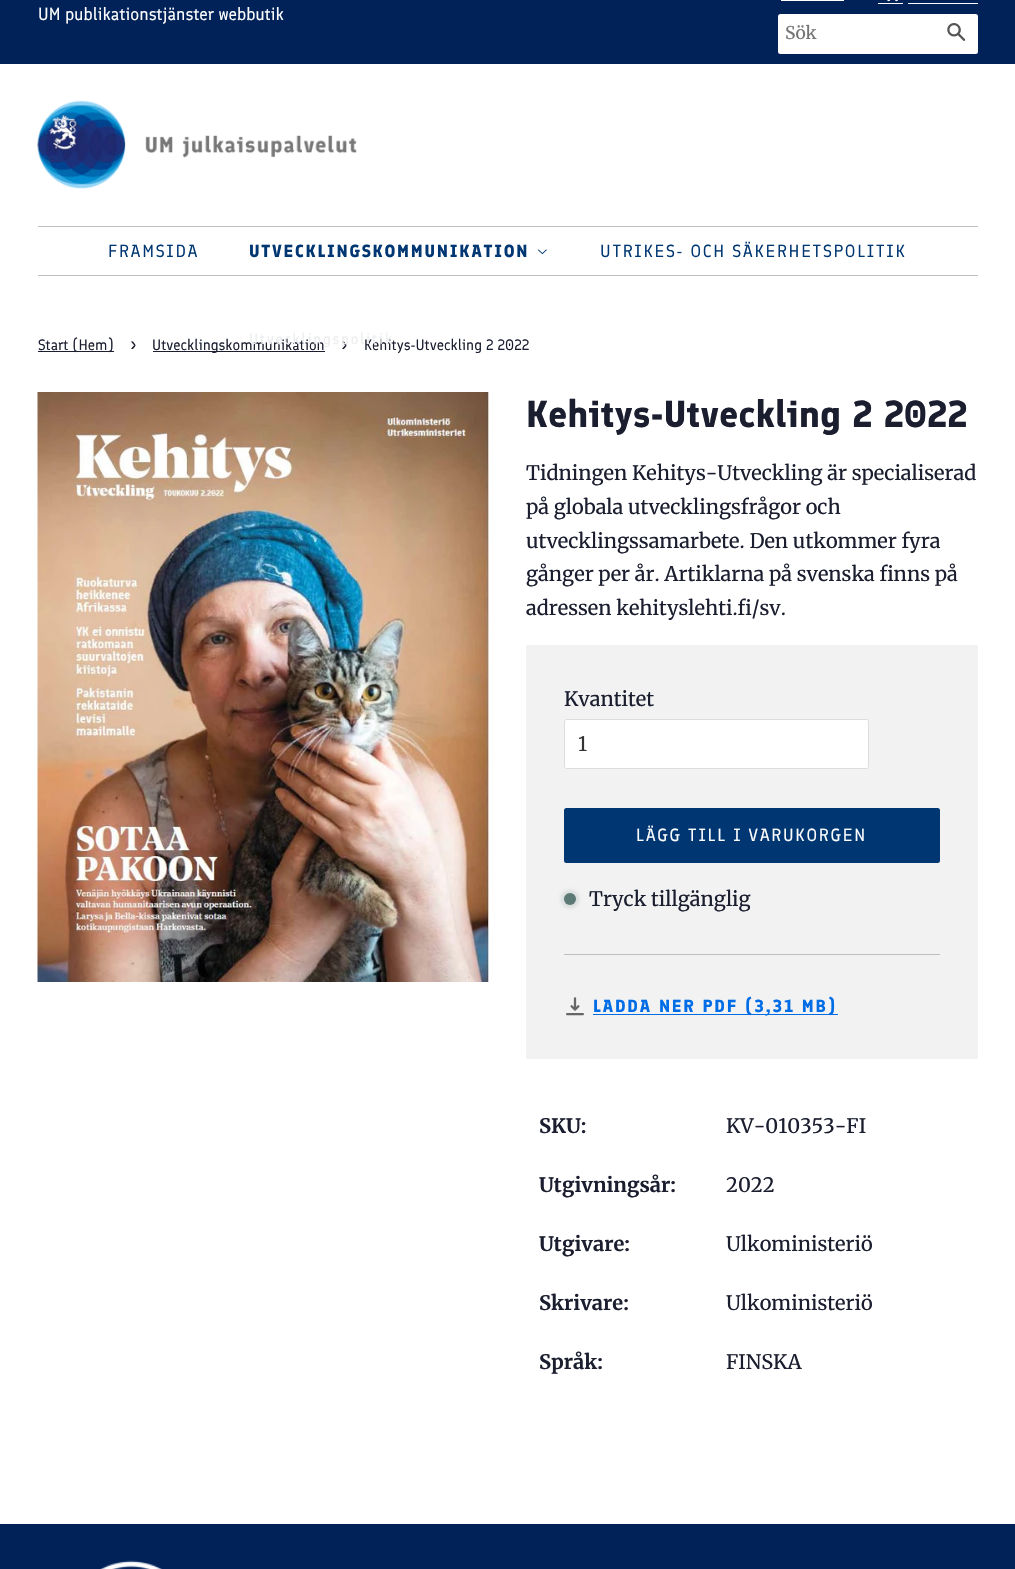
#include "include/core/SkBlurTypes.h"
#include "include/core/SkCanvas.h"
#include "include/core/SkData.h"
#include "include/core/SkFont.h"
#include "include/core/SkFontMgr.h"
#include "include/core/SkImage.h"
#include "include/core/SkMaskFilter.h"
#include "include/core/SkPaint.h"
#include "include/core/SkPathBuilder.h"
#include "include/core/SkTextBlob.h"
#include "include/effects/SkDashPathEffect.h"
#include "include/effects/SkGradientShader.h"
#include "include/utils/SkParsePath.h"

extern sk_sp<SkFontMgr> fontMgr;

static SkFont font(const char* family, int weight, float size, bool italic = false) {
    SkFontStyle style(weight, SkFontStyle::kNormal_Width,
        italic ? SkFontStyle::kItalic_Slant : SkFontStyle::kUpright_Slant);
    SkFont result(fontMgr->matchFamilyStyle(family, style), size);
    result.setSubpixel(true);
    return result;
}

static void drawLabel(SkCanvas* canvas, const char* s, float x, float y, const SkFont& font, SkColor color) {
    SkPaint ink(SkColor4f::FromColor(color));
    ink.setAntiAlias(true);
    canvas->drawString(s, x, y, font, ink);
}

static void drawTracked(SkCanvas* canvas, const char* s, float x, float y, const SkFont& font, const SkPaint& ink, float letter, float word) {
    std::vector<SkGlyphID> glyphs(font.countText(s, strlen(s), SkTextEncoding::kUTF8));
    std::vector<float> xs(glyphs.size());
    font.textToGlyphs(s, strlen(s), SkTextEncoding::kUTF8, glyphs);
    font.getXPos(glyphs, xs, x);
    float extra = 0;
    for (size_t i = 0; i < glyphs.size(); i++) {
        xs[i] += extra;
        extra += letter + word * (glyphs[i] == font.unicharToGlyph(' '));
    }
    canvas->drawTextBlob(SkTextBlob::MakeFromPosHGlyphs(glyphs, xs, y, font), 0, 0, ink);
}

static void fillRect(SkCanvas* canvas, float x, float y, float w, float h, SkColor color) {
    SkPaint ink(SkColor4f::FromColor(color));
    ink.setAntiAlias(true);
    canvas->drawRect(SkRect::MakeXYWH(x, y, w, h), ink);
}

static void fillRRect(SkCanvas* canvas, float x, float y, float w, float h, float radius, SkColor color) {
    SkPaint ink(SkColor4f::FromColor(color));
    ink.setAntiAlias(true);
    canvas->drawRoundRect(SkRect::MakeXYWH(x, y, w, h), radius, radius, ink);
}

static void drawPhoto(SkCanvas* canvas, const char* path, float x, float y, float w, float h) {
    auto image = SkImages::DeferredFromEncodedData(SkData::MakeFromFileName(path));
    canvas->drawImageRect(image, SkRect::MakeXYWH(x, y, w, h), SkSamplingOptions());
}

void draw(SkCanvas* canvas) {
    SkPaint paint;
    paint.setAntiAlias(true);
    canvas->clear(0xFFFFFFFF);
    fillRect(canvas, 0, 0, 1015, 64, 0xFF002259);
    SkFont font1 = font("Finlandica", 400, 17.5f);
    drawLabel(canvas, "UM publikationstjänster webbutik", 38, 20, font1, 0xFFFFFFFF);
    fillRect(canvas, 781, 0, 63, 1, 0xFFFFFFFF);
    drawPhoto(canvas, "assets/img1.png", 887, 0, 11, 2);
    fillRect(canvas, 878, 3, 25, 1, 0xFFFFFFFF);
    fillRect(canvas, 908, 3, 70, 1, 0xFFFFFFFF);
    fillRRect(canvas, 778, 14, 200, 40, 2.5f, 0xFFFFFFFF);
    SkFont font2 = font("Merriweather", 400, 17.5f);
    drawLabel(canvas, "Sök", 785, 39, font2, 0xFF757575);
    drawPhoto(canvas, "assets/img2.png", 947, 23, 19, 18);
    drawPhoto(canvas, "assets/img3.png", 37, 100, 320, 89);
    fillRect(canvas, 38, 226, 940, 1, 0xFFBEBEBE);
    fillRect(canvas, 38, 275, 940, 1, 0xFFBEBEBE);
    paint.setColor(0xFF003773);
    drawTracked(canvas, "FRAMSIDA", 108, 257, font1, paint, 1.75f, 0);
    SkFont font3 = font("Finlandica", 700, 17.5f);
    drawTracked(canvas, "UTVECKLINGSKOMMUNIKATION", 249, 257, font3, paint, 1.75f, 0);
    drawPhoto(canvas, "assets/img4.png", 538, 249, 9, 6);
    fillRect(canvas, 153, 351, 172, 1, 0xFF1B1E2F);
    SkFont font4 = font("Finlandica", 400, 15);
    drawLabel(canvas, "Utvecklingskommunikation", 152, 350, font4, 0xFF1B1E2F);
    SkFont font5 = font("Finlandica", 400, 21);
    drawLabel(canvas, "›", 341, 350, font5, 0xFF1B1E2F);
    drawLabel(canvas, "Kehitys-Utveckling 2 2022", 364, 350, font4, 0xFF1B1E2F);
    SkFont font6 = font("Finlandica", 400, 14.9f);
    paint.setColor(0xFFECEDEE);
    drawTracked(canvas, "Utvecklingspolitik", 249, 344, font6, paint, 1.75f, 0);
    paint.setColor(0xFF003773);
    drawTracked(canvas, "UTRIKES- OCH SÄKERHETSPOLITIK", 600, 257, font1, paint, 1.75f, 0);
    fillRect(canvas, 38, 351, 76, 1, 0xFF1B1E2F);
    drawLabel(canvas, "Start (Hem)", 38, 350, font4, 0xFF1B1E2F);
    drawLabel(canvas, "›", 130, 350, font5, 0xFF1B1E2F);
    drawPhoto(canvas, "assets/img5.png", 37, 392, 452, 590);
    SkFont font7 = font("Finlandica", 700, 37.5f);
    drawLabel(canvas, "Kehitys-Utveckling 2 2022", 526, 427, font7, 0xFF1B1E2F);
    SkFont font8 = font("Merriweather", 400, 20);
    drawLabel(canvas, "Tidningen Kehitys-Utveckling är specialiserad", 526, 480, font8, 0xFF1B1E2F);
    drawLabel(canvas, "på globala utvecklingsfrågor och", 526, 514, font8, 0xFF1B1E2F);
    drawLabel(canvas, "utvecklingssamarbete. Den utkommer fyra", 526, 548, font8, 0xFF1B1E2F);
    drawLabel(canvas, "gånger per år. Artiklarna på svenska finns på", 526, 581, font8, 0xFF1B1E2F);
    drawLabel(canvas, "adressen kehityslehti.fi/sv.", 526, 615, font8, 0xFF1B1E2F);
    fillRect(canvas, 526, 645, 452, 414, 0xFFF2F2F2);
    drawLabel(canvas, "Kvantitet", 564, 706, font8, 0xFF1B1E2F);
    fillRRect(canvas, 564, 719, 305, 50, 2.5f, 0xFFFFFFFF);
    paint.setStroke(true);
    paint.setStrokeWidth(1);
    paint.setColor(0x261B1E2F);
    canvas->drawRoundRect(SkRect::MakeXYWH(564.5f, 719.5f, 304, 49), 2, 2, paint);
    drawLabel(canvas, "1", 578, 751, font8, 0xFF333333);
    fillRRect(canvas, 564, 808, 376, 55, 2.5f, 0xFF003773);
    paint.setStroke(false);
    paint.setColor(0xFFFFFFFF);
    drawTracked(canvas, "LÄGG TILL I VARUKORGEN", 636, 841, font1, paint, 1.75f, 0);
    paint.setColor(0x335D7975);
    paint.setMaskFilter(SkMaskFilter::MakeBlur(kNormal_SkBlurStyle, 2));
    canvas->drawRoundRect(SkRect::MakeXYWH(561, 890, 18, 18), 9, 9, paint);
    paint.setMaskFilter(nullptr);
    paint.setColor(0xFF5D7975);
    canvas->drawCircle(570, 899, 6, paint);
    drawLabel(canvas, "Tryck tillgänglig", 589, 906, font8, 0xFF1B1E2F);
    fillRect(canvas, 564, 954, 376, 1, 0xFFBEBEBE);
    drawPhoto(canvas, "assets/img6.png", 566, 997, 18, 19);
    fillRect(canvas, 593, 1014, 245, 1, 0xFF006DE7);
    paint.setColor(0xFF006DE7);
    drawTracked(canvas, "LADDA NER PDF (3,31 MB)", 593, 1012, font3, paint, 1.75f, 0);
    SkFont font9 = font("Merriweather", 700, 20);
    drawLabel(canvas, "SKU:", 539, 1133, font9, 0xFF1B1E2F);
    drawLabel(canvas, "KV-010353-FI", 726, 1133, font8, 0xFF1B1E2F);
    drawLabel(canvas, "Utgivningsår:", 539, 1192, font9, 0xFF1B1E2F);
    drawLabel(canvas, "2022", 726, 1192, font8, 0xFF1B1E2F);
    drawLabel(canvas, "Utgivare:", 539, 1251, font9, 0xFF1B1E2F);
    drawLabel(canvas, "Ulkoministeriö", 726, 1251, font8, 0xFF1B1E2F);
    drawLabel(canvas, "Skrivare:", 539, 1310, font9, 0xFF1B1E2F);
    drawLabel(canvas, "Ulkoministeriö", 726, 1310, font8, 0xFF1B1E2F);
    drawLabel(canvas, "Språk:", 539, 1369, font9, 0xFF1B1E2F);
    drawLabel(canvas, "FINSKA", 726, 1369, font8, 0xFF1B1E2F);
    fillRect(canvas, 0, 1524, 1015, 45, 0xFF002259);
    drawPhoto(canvas, "assets/img7.png", 100, 1560, 62, 9);
}
